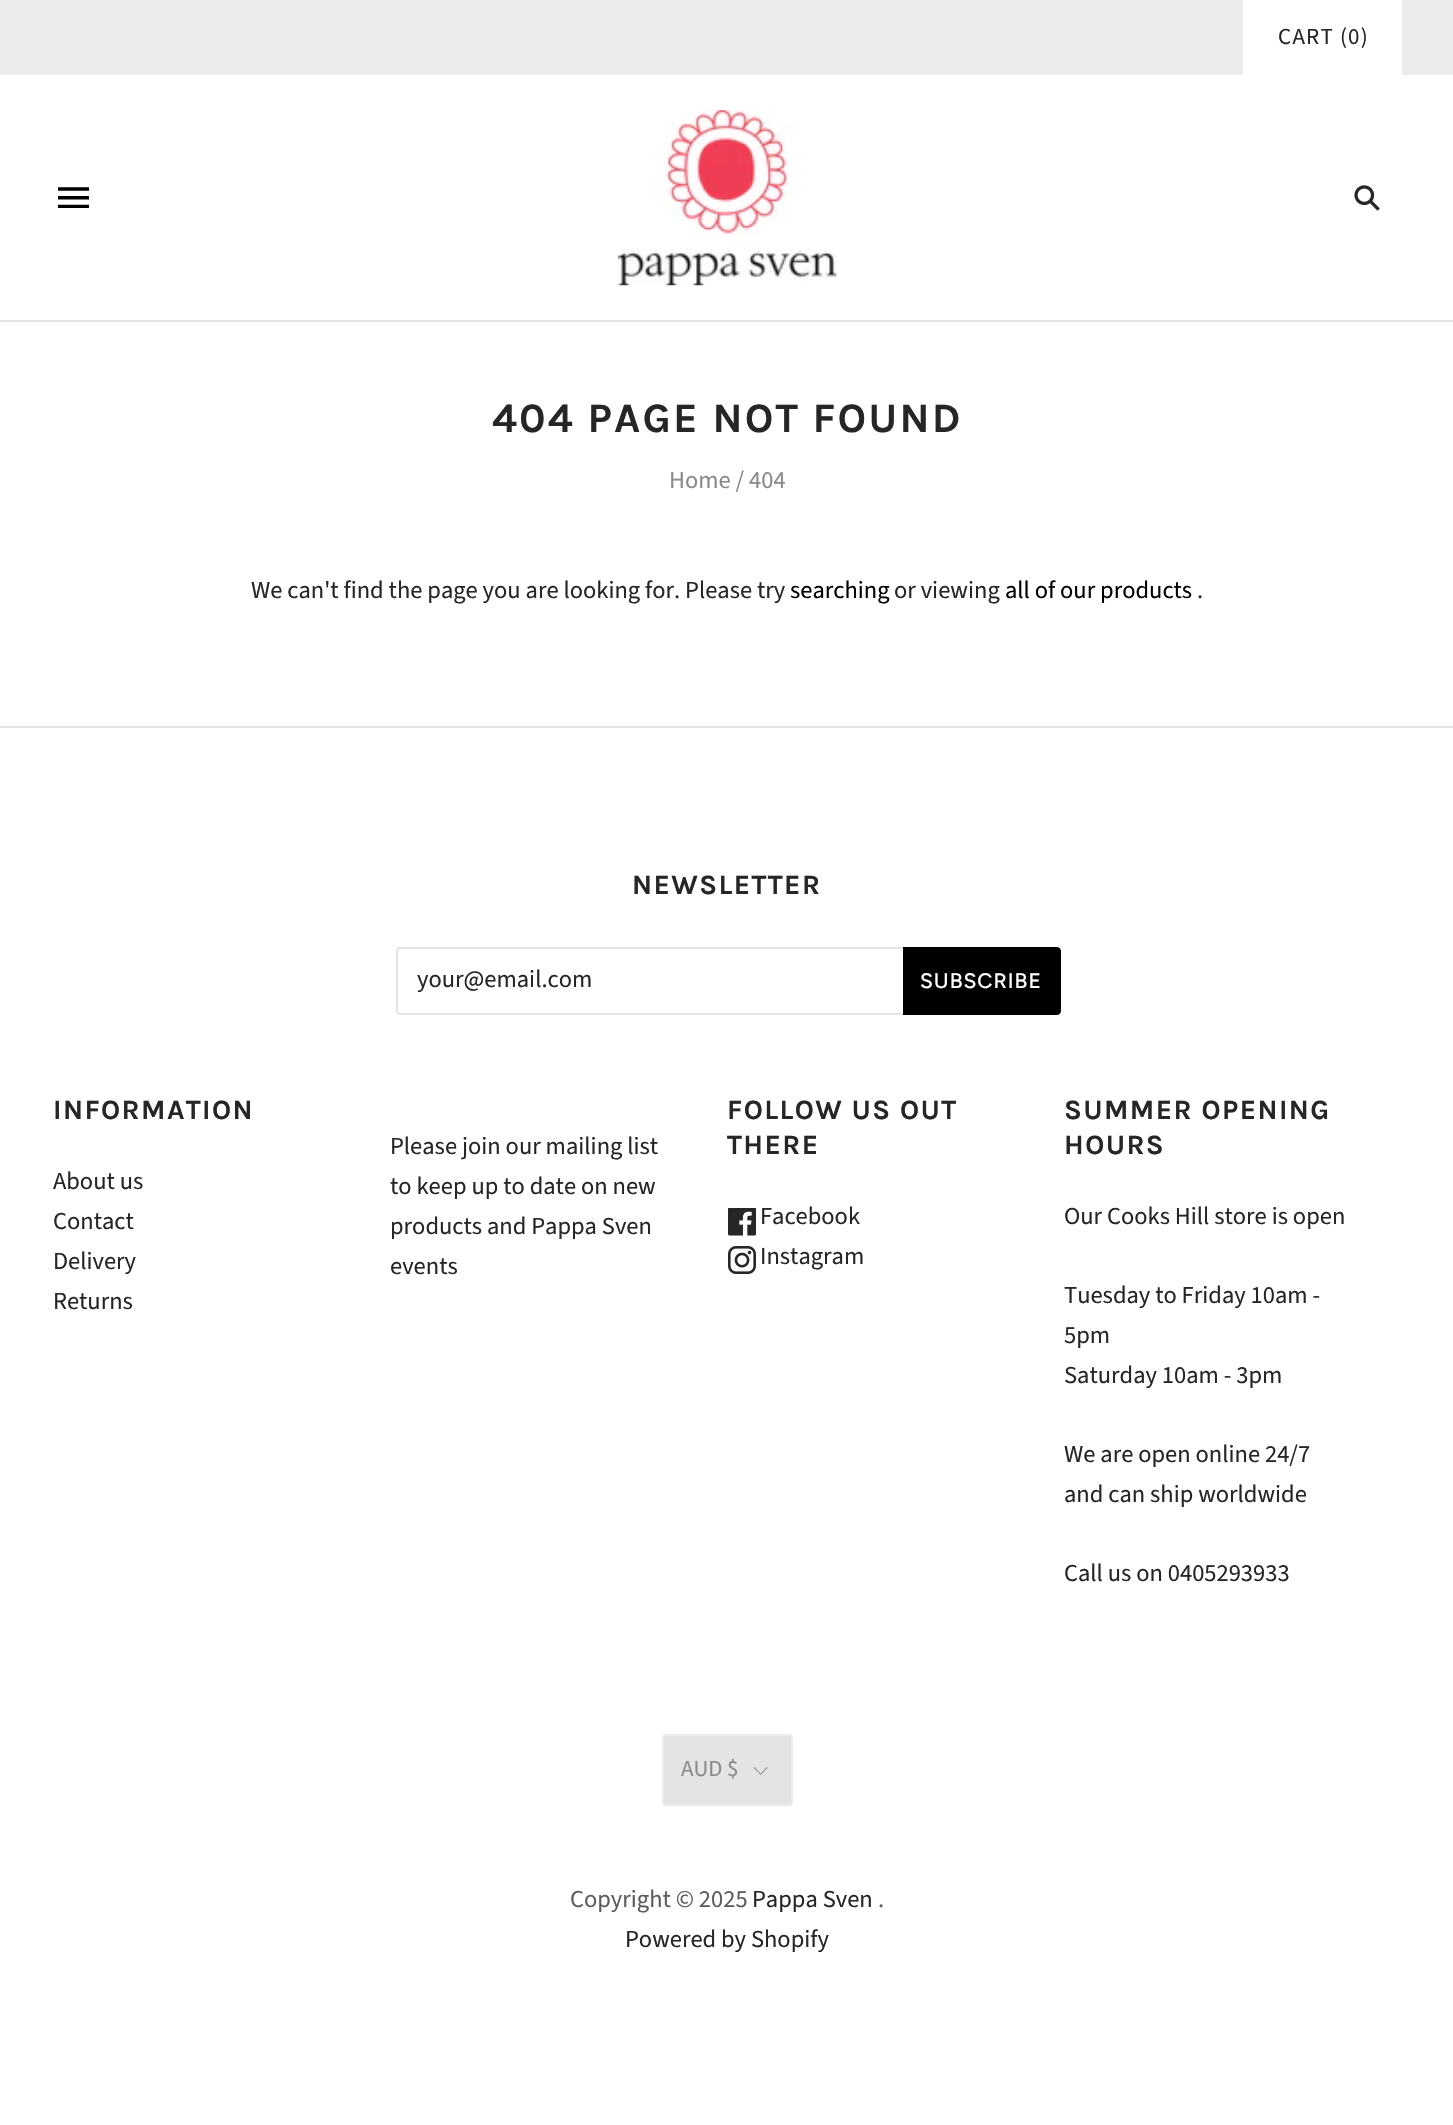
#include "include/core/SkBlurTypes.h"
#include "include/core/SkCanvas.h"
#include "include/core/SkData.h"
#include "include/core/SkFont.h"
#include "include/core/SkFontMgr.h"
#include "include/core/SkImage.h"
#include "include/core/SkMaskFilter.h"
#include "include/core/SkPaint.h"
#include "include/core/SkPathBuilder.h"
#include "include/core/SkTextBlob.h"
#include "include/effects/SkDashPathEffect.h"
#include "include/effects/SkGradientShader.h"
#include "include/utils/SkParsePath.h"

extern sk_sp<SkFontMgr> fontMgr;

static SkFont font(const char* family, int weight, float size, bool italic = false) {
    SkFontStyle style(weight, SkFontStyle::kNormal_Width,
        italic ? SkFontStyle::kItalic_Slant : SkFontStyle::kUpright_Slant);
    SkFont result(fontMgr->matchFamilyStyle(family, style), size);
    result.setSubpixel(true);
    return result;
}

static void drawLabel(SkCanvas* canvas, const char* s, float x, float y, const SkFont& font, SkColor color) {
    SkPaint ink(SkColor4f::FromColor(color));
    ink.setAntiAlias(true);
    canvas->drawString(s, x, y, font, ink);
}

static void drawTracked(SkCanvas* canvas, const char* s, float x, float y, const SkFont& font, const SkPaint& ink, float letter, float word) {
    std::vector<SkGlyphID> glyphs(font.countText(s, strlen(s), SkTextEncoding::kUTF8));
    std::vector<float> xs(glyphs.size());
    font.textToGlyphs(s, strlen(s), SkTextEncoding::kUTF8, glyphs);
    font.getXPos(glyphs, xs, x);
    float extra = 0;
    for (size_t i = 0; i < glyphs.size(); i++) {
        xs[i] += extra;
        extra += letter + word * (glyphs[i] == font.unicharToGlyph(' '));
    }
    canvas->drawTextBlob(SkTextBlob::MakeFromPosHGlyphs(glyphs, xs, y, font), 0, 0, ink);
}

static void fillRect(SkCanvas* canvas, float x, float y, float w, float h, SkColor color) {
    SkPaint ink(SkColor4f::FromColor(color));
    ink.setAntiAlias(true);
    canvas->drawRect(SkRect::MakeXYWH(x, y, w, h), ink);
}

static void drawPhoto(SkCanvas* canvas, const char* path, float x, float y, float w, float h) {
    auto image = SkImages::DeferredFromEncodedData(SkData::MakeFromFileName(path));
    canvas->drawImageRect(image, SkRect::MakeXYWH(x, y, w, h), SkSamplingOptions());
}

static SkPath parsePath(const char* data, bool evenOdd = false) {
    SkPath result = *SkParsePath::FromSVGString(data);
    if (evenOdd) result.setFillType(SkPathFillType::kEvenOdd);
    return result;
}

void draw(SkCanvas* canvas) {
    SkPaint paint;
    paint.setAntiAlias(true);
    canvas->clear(0xFFFFFFFF);
    fillRect(canvas, 0, 320, 1453, 2, 0xFFE4E4E4);
    fillRect(canvas, 0, 0, 1453, 75, 0xFFEBEBEB);
    fillRect(canvas, 1243, 0, 159, 75, 0xFFFFFFFF);
    SkFont font1 = font("Source Sans Pro", 400, 23);
    paint.setColor(0xFF262626);
    drawTracked(canvas, "CART (0)", 1278, 44, font1, paint, 1.25f, 0);
    drawPhoto(canvas, "assets/img1.png", 58, 187, 31, 21);
    drawPhoto(canvas, "assets/img2.png", 617, 110, 220, 176);
    drawPhoto(canvas, "assets/img3.png", 1354, 185, 26, 26);
    SkFont font2 = font("Karla", 700, 42);
    drawTracked(canvas, "404 PAGE NOT FOUND", 492, 432, font2, paint, 2.1f, 0);
    SkFont font3 = font("Source Sans Pro", 400, 24.5f);
    drawLabel(canvas, "Home / 404", 669, 488, font3, 0xFF8A8A8A);
    drawLabel(canvas, "We can't find the page you are looking for. Please try", 251, 598, font3, 0xFF262626);
    drawLabel(canvas, "searching", 790, 598, font3, 0xFF000000);
    drawLabel(canvas, "or viewing", 894, 598, font3, 0xFF262626);
    drawLabel(canvas, "all of our products", 1005, 598, font3, 0xFF000000);
    drawLabel(canvas, ".", 1197, 598, font3, 0xFF262626);
    fillRect(canvas, 0, 726, 1453, 2, 0xFFE4E4E4);
    SkFont font4 = font("Karla", 700, 28);
    drawTracked(canvas, "NEWSLETTER", 632, 894, font4, paint, 1.4f, 0);
    paint.setStroke(true);
    paint.setStrokeWidth(2);
    paint.setColor(0xFFE4E4E4);
    canvas->drawRoundRect(SkRect::MakeXYWH(397, 948, 593, 66), 3, 3, paint);
    drawLabel(canvas, "your@email.com", 417, 987, font3, 0xFF262626);
    paint.setStroke(false);
    paint.setColor(0xFF000000);
    canvas->drawPath(parsePath("M903 947H1057C1059 947 1061 949 1061 951V1011C1061 1013 1059 1015 1057 1015H903Z"), paint);
    SkFont font5 = font("Figtree", 500, 21);
    paint.setColor(0xFFFFFFFF);
    drawTracked(canvas, "SUBSCRIBE", 920, 988, font5, paint, 1, 0);
    paint.setColor(0xFF262626);
    drawTracked(canvas, "INFORMATION", 53, 1119, font4, paint, 1.4f, 0);
    drawLabel(canvas, "About us", 53, 1189, font3, 0xFF262626);
    drawLabel(canvas, "Contact", 53, 1229, font3, 0xFF262626);
    drawLabel(canvas, "Delivery", 53, 1269, font3, 0xFF262626);
    drawLabel(canvas, "Returns", 53, 1309, font3, 0xFF262626);
    drawLabel(canvas, "Please join our mailing list", 390, 1154, font3, 0xFF262626);
    drawLabel(canvas, "to keep up to date on new", 390, 1194, font3, 0xFF262626);
    drawLabel(canvas, "products and Pappa Sven", 390, 1234, font3, 0xFF262626);
    drawLabel(canvas, "events", 390, 1274, font3, 0xFF262626);
    drawTracked(canvas, "FOLLOW US OUT", 727, 1119, font4, paint, 1.4f, 0);
    drawTracked(canvas, "THERE", 727, 1154, font4, paint, 1.4f, 0);
    drawPhoto(canvas, "assets/img4.png", 728, 1208, 28, 28);
    drawLabel(canvas, "Facebook", 760, 1224, font3, 0xFF262626);
    drawPhoto(canvas, "assets/img5.png", 728, 1246, 28, 28);
    drawLabel(canvas, "Instagram", 760, 1264, font3, 0xFF262626);
    drawTracked(canvas, "SUMMER OPENING", 1064, 1119, font4, paint, 1.4f, 0);
    drawTracked(canvas, "HOURS", 1064, 1154, font4, paint, 1.4f, 0);
    drawLabel(canvas, "Our Cooks Hill store is open", 1064, 1224, font3, 0xFF262626);
    drawLabel(canvas, "Tuesday to Friday 10am -", 1064, 1303, font3, 0xFF262626);
    drawLabel(canvas, "5pm", 1064, 1343, font3, 0xFF262626);
    drawLabel(canvas, "Saturday 10am - 3pm", 1064, 1383, font3, 0xFF262626);
    drawLabel(canvas, "We are open online 24/7", 1064, 1462, font3, 0xFF262626);
    drawLabel(canvas, "and can ship worldwide", 1064, 1502, font3, 0xFF262626);
    drawLabel(canvas, "Call us on 0405293933", 1064, 1581, font3, 0xFF262626);
    paint.setColor(0xFFE4E4E4);
    canvas->drawRoundRect(SkRect::MakeXYWH(663, 1735, 129, 70), 3, 3, paint);
    paint.setStroke(true);
    paint.setColor(0xFFEBEBEB);
    canvas->drawRoundRect(SkRect::MakeXYWH(663, 1735, 129, 70), 3, 3, paint);
    drawLabel(canvas, "AUD $", 681, 1776, font1, 0xFF8A8A8A);
    drawPhoto(canvas, "assets/img6.png", 753, 1767, 15, 8);
    drawLabel(canvas, "Copyright © 2025", 570, 1907, font3, 0xFF5C5C5C);
    drawLabel(canvas, "Pappa Sven", 752, 1907, font3, 0xFF262626);
    drawLabel(canvas, ".", 878, 1907, font3, 0xFF5C5C5C);
    drawLabel(canvas, "Powered by Shopify", 625, 1947, font3, 0xFF262626);
}
